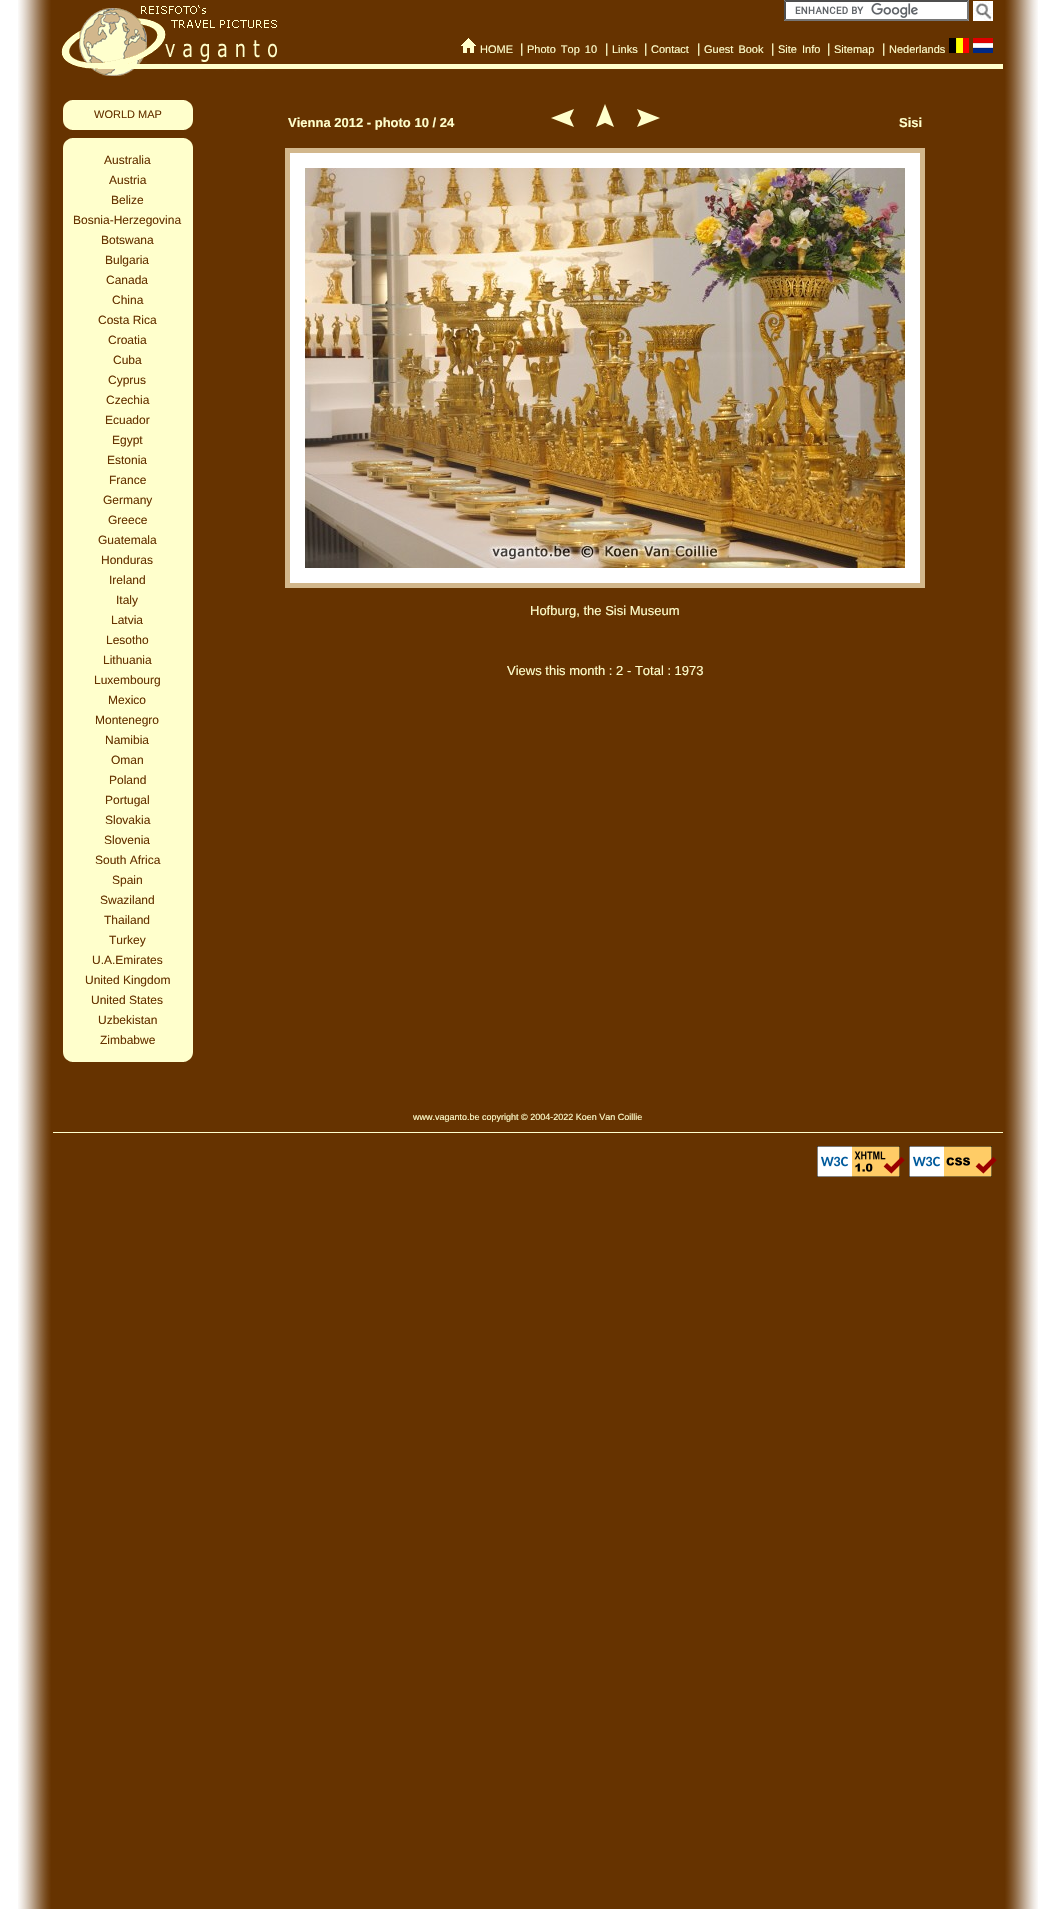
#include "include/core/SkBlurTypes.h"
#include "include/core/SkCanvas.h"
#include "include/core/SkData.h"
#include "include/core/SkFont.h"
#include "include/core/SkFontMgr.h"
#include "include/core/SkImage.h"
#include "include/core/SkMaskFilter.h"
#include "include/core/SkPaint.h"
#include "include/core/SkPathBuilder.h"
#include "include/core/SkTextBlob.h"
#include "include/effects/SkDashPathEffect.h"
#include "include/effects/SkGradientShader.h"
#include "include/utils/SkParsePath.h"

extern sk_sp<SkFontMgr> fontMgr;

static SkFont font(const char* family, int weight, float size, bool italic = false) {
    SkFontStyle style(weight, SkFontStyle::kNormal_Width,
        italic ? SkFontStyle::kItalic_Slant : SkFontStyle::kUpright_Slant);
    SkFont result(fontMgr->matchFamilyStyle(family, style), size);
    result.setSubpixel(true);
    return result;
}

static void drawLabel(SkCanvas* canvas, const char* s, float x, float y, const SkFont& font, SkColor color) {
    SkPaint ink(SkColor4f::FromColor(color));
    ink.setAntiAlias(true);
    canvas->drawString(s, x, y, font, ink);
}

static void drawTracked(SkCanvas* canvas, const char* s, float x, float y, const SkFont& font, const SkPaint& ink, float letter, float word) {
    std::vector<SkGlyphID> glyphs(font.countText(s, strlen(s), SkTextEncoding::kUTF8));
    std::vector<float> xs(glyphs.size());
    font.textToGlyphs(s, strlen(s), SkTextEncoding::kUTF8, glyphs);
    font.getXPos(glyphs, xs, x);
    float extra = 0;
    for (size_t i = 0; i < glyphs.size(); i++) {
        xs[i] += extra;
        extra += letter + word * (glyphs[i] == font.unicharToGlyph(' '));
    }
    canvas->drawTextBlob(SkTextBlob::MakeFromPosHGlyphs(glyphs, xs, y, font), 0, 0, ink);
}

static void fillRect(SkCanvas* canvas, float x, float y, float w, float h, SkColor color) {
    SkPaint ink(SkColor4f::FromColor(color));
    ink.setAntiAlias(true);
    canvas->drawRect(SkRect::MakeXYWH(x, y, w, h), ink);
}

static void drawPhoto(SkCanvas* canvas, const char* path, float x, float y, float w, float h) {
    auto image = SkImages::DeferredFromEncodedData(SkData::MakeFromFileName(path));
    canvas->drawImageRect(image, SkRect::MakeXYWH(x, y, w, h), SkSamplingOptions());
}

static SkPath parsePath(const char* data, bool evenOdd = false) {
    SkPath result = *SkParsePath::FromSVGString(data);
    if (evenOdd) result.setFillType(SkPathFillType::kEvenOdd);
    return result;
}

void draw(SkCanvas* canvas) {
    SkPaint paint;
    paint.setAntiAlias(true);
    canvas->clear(0xFFFFFFFF);
    drawPhoto(canvas, "assets/img1.png", 18, 0, 1020, 1909);
    drawPhoto(canvas, "assets/img2.png", 61, 5, 942, 71);
    fillRect(canvas, 784, 0, 185, 21, 0xFFFFFFFF);
    drawPhoto(canvas, "assets/img3.png", 795, 3, 123, 15);
    paint.setColor(0xFF4F4F4F);
    canvas->drawPath(parsePath("M784 0H969L967 2H786Z"), paint);
    paint.setColor(0xFF767676);
    canvas->drawPath(parsePath("M969 0V21L967 19V2Z"), paint);
    canvas->drawPath(parsePath("M969 21H784L786 19H967Z"), paint);
    paint.setColor(0xFF4F4F4F);
    canvas->drawPath(parsePath("M784 21V0L786 2V19Z"), paint);
    drawPhoto(canvas, "assets/img4.png", 973, 1, 20, 20);
    drawPhoto(canvas, "assets/img5.png", 461, 38, 15, 15);
    SkFont font1 = font("Liberation Sans", 400, 11);
    drawLabel(canvas, "HOME", 480, 53, font1, 0xFFFFFFCC);
    SkFont font2 = font("Liberation Sans", 400, 13);
    drawLabel(canvas, "|", 520, 53, font2, 0xFFFFFFCC);
    paint.setColor(0xFFFFFFCC);
    drawTracked(canvas, "Photo Top 10", 527, 53, font1, paint, 0, 2);
    drawLabel(canvas, "|", 605, 53, font2, 0xFFFFFFCC);
    drawLabel(canvas, "Links", 612, 53, font1, 0xFFFFFFCC);
    drawLabel(canvas, "|", 644, 53, font2, 0xFFFFFFCC);
    drawLabel(canvas, "Contact", 651, 53, font1, 0xFFFFFFCC);
    drawLabel(canvas, "|", 697, 53, font2, 0xFFFFFFCC);
    drawTracked(canvas, "Guest Book", 704, 53, font1, paint, 0, 2);
    drawLabel(canvas, "|", 771, 53, font2, 0xFFFFFFCC);
    drawTracked(canvas, "Site Info", 778, 53, font1, paint, 0, 2);
    drawLabel(canvas, "|", 827, 53, font2, 0xFFFFFFCC);
    drawLabel(canvas, "Sitemap", 834, 53, font1, 0xFFFFFFCC);
    drawLabel(canvas, "|", 882, 53, font2, 0xFFFFFFCC);
    drawLabel(canvas, "Nederlands", 889, 53, font1, 0xFFFFFFCC);
    drawPhoto(canvas, "assets/img6.png", 949, 38, 20, 15);
    drawPhoto(canvas, "assets/img7.png", 973, 38, 20, 15);
    drawPhoto(canvas, "assets/img8.png", 63, 100, 130, 30);
    drawLabel(canvas, "WORLD MAP", 94, 118, font1, 0xFF663300);
    drawPhoto(canvas, "assets/img9.png", 63, 138, 130, 12);
    fillRect(canvas, 63, 150, 130, 900, 0xFFFFFFCC);
    SkFont font3 = font("Liberation Sans", 400, 12);
    drawLabel(canvas, "Australia", 104, 164, font3, 0xFF663300);
    drawLabel(canvas, "Austria", 109, 184, font3, 0xFF663300);
    drawLabel(canvas, "Belize", 111, 204, font3, 0xFF663300);
    drawLabel(canvas, "Bosnia-Herzegovina", 73, 224, font3, 0xFF663300);
    drawLabel(canvas, "Botswana", 101, 244, font3, 0xFF663300);
    drawLabel(canvas, "Bulgaria", 105, 264, font3, 0xFF663300);
    drawLabel(canvas, "Canada", 106, 284, font3, 0xFF663300);
    drawLabel(canvas, "China", 112, 304, font3, 0xFF663300);
    drawLabel(canvas, "Costa Rica", 98, 324, font3, 0xFF663300);
    drawLabel(canvas, "Croatia", 108, 344, font3, 0xFF663300);
    drawLabel(canvas, "Cuba", 113, 364, font3, 0xFF663300);
    drawLabel(canvas, "Cyprus", 108, 384, font3, 0xFF663300);
    drawLabel(canvas, "Czechia", 106, 404, font3, 0xFF663300);
    drawLabel(canvas, "Ecuador", 105, 424, font3, 0xFF663300);
    drawLabel(canvas, "Egypt", 112, 444, font3, 0xFF663300);
    drawLabel(canvas, "Estonia", 107, 464, font3, 0xFF663300);
    drawLabel(canvas, "France", 109, 484, font3, 0xFF663300);
    drawLabel(canvas, "Germany", 103, 504, font3, 0xFF663300);
    drawLabel(canvas, "Greece", 108, 524, font3, 0xFF663300);
    drawLabel(canvas, "Guatemala", 98, 544, font3, 0xFF663300);
    drawLabel(canvas, "Honduras", 101, 564, font3, 0xFF663300);
    drawLabel(canvas, "Ireland", 109, 584, font3, 0xFF663300);
    drawLabel(canvas, "Italy", 116, 604, font3, 0xFF663300);
    drawLabel(canvas, "Latvia", 111, 624, font3, 0xFF663300);
    drawLabel(canvas, "Lesotho", 106, 644, font3, 0xFF663300);
    drawLabel(canvas, "Lithuania", 103, 664, font3, 0xFF663300);
    drawLabel(canvas, "Luxembourg", 94, 684, font3, 0xFF663300);
    drawLabel(canvas, "Mexico", 108, 704, font3, 0xFF663300);
    drawLabel(canvas, "Montenegro", 95, 724, font3, 0xFF663300);
    drawLabel(canvas, "Namibia", 105, 744, font3, 0xFF663300);
    drawLabel(canvas, "Oman", 111, 764, font3, 0xFF663300);
    drawLabel(canvas, "Poland", 109, 784, font3, 0xFF663300);
    drawLabel(canvas, "Portugal", 105, 804, font3, 0xFF663300);
    drawLabel(canvas, "Slovakia", 105, 824, font3, 0xFF663300);
    drawLabel(canvas, "Slovenia", 104, 844, font3, 0xFF663300);
    drawLabel(canvas, "South Africa", 95, 864, font3, 0xFF663300);
    drawLabel(canvas, "Spain", 112, 884, font3, 0xFF663300);
    drawLabel(canvas, "Swaziland", 100, 904, font3, 0xFF663300);
    drawLabel(canvas, "Thailand", 104, 924, font3, 0xFF663300);
    drawLabel(canvas, "Turkey", 109, 944, font3, 0xFF663300);
    drawLabel(canvas, "U.A.Emirates", 92, 964, font3, 0xFF663300);
    drawLabel(canvas, "United Kingdom", 85, 984, font3, 0xFF663300);
    drawLabel(canvas, "United States", 91, 1004, font3, 0xFF663300);
    drawLabel(canvas, "Uzbekistan", 98, 1024, font3, 0xFF663300);
    drawLabel(canvas, "Zimbabwe", 100, 1044, font3, 0xFF663300);
    drawPhoto(canvas, "assets/img10.png", 63, 1050, 130, 12);
    SkFont font4 = font("Liberation Sans", 700, 13);
    drawLabel(canvas, "Vienna 2012 - photo 10 / 24", 288, 127, font4, 0xFFFFFFCC);
    drawPhoto(canvas, "assets/img11.png", 551, 109, 23, 18);
    drawPhoto(canvas, "assets/img12.png", 596, 104, 18, 23);
    drawPhoto(canvas, "assets/img13.png", 637, 109, 23, 18);
    drawLabel(canvas, "Sisi", 899, 127, font4, 0xFFFFFFCC);
    paint.setColor(0xFFFFFFFF);
    canvas->drawRect(SkRect::MakeXYWH(287.5f, 150.5f, 635, 435), paint);
    paint.setStroke(true);
    paint.setStrokeWidth(5);
    paint.setColor(0xFFD2B78C);
    canvas->drawRect(SkRect::MakeXYWH(287.5f, 150.5f, 635, 435), paint);
    drawPhoto(canvas, "assets/img14.png", 305, 168, 600, 400);
    drawLabel(canvas, "Hofburg, the Sisi Museum", 530, 615, font2, 0xFFFFFFCC);
    drawLabel(canvas, "Views this month : 2 - Total : 1973", 507, 675, font2, 0xFFFFFFCC);
    fillRect(canvas, 53, 1132, 950, 1, 0xFFFFFFCC);
    SkFont font5 = font("Liberation Sans", 400, 9);
    drawLabel(canvas, "www.vaganto.be copyright © 2004-2022 Koen Van Coillie", 413, 1120, font5, 0xFFFFFFCC);
    drawPhoto(canvas, "assets/img15.png", 817, 1146, 88, 31);
    drawPhoto(canvas, "assets/img16.png", 909, 1146, 88, 31);
}
